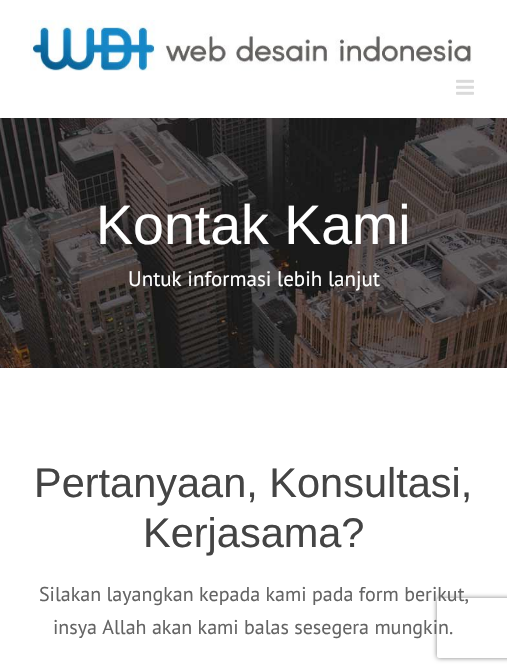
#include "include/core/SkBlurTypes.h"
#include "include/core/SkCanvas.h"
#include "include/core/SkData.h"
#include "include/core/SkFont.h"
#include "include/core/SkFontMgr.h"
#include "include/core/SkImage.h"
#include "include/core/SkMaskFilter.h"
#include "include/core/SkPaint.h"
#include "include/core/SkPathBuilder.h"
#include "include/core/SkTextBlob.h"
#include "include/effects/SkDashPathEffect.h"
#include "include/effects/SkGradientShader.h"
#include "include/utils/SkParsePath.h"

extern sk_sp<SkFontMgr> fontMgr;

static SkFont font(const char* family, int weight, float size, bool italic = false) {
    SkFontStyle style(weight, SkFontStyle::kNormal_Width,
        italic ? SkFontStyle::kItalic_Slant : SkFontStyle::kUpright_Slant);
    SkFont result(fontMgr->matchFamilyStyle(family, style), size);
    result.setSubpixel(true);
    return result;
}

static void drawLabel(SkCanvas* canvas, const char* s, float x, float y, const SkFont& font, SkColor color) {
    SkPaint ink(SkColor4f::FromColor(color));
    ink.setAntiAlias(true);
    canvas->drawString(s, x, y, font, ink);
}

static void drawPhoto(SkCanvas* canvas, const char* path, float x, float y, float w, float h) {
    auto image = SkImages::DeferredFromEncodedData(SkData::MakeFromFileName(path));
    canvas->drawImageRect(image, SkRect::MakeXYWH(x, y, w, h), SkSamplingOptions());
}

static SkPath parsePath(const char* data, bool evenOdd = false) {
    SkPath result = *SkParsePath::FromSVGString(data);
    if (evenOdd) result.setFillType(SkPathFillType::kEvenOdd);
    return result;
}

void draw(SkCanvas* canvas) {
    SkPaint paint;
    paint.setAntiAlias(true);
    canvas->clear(0xFFFFFFFF);
    drawPhoto(canvas, "assets/img1.png", 30, 20, 442, 51);
    drawPhoto(canvas, "assets/img2.png", 456, 79, 18, 16);
    drawPhoto(canvas, "assets/img3.png", 0, 118, 507, 250);
    SkFont font1 = font("Liberation Sans", 400, 55.5f);
    drawLabel(canvas, "Kontak Kami", 96, 244, font1, 0xFFFFFFFF);
    SkFont font2 = font("PT Sans", 400, 21);
    drawLabel(canvas, "Untuk informasi lebih lanjut", 128, 286, font2, 0xFFFFFFFF);
    SkFont font3 = font("Liberation Sans", 400, 41.5f);
    drawLabel(canvas, "Pertanyaan, Konsultasi,", 34, 497, font3, 0xFF444444);
    drawLabel(canvas, "Kerjasama?", 143, 547, font3, 0xFF444444);
    canvas->save();
    canvas->clipPath(parsePath("M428 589H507V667H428ZM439 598H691C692 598 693 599 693 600V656C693 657 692 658 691 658H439C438 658 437 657 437 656V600C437 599 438 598 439 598Z", true), true);
    paint.setColor(0xFF808080);
    paint.setMaskFilter(SkMaskFilter::MakeBlur(kNormal_SkBlurStyle, 2.5f));
    canvas->drawRoundRect(SkRect::MakeXYWH(437, 598, 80, 60), 2, 2, paint);
    paint.setMaskFilter(nullptr);
    canvas->restore();
    SkFont font4 = font("PT Sans", 400, 20);
    drawLabel(canvas, "Silakan layangkan kepada kami pada form berikut,", 39, 601, font4, 0xFF646464);
    drawLabel(canvas, "insya Allah akan kami balas sesegera mungkin.", 53, 634, font4, 0xFF646464);
}
